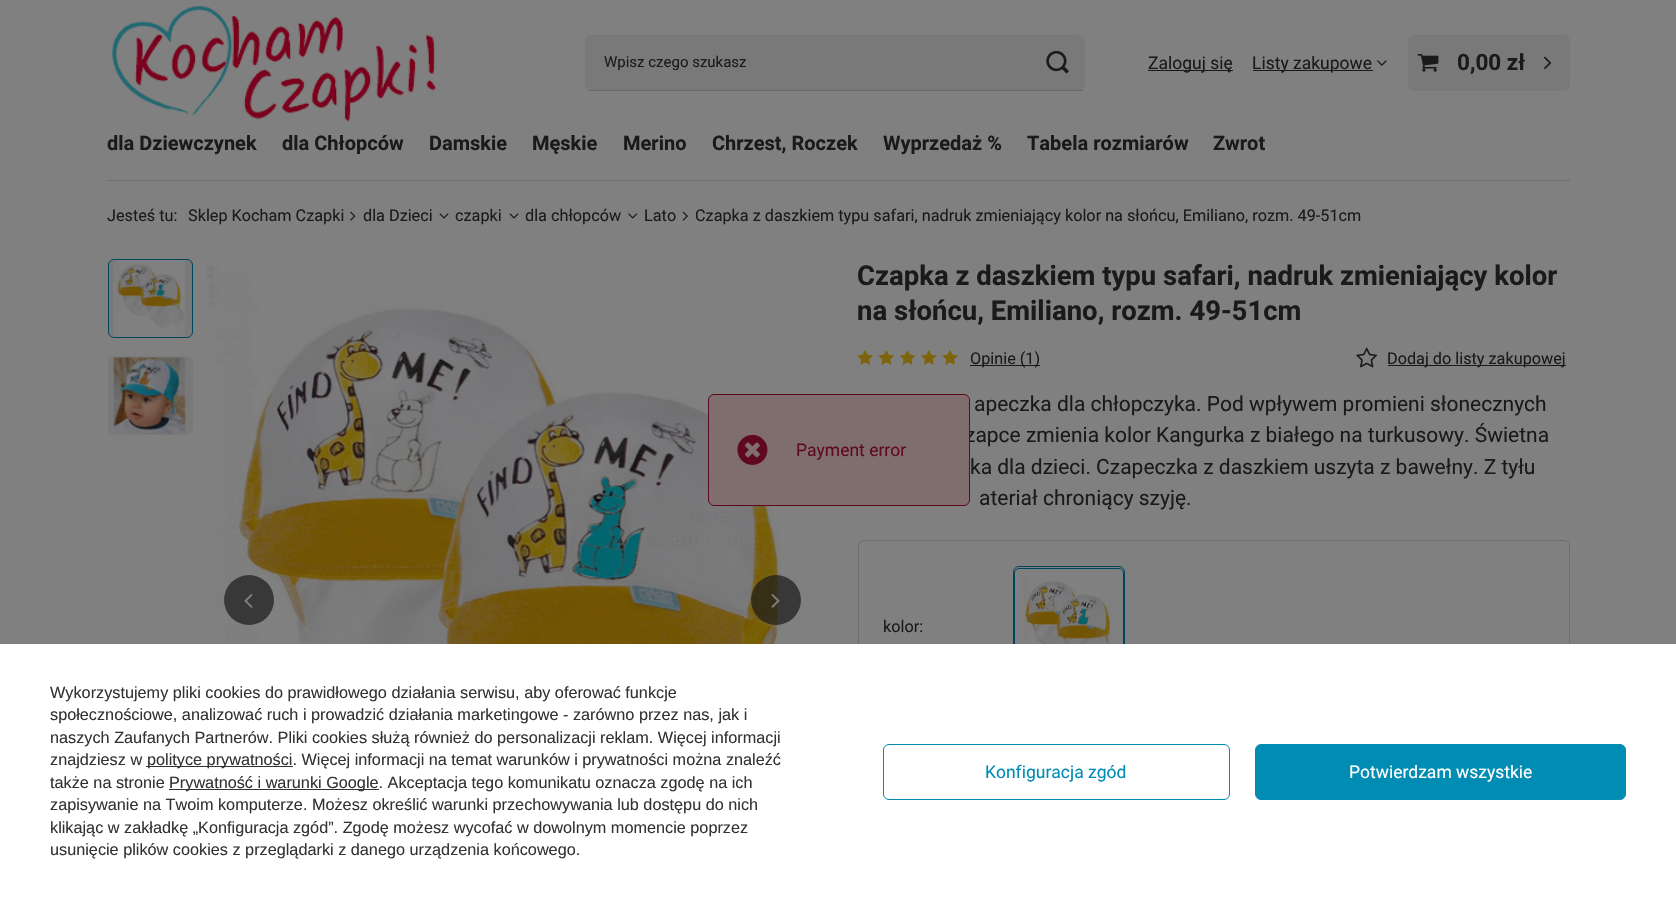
#include "include/core/SkBlurTypes.h"
#include "include/core/SkCanvas.h"
#include "include/core/SkData.h"
#include "include/core/SkFont.h"
#include "include/core/SkFontMgr.h"
#include "include/core/SkImage.h"
#include "include/core/SkMaskFilter.h"
#include "include/core/SkPaint.h"
#include "include/core/SkPathBuilder.h"
#include "include/core/SkTextBlob.h"
#include "include/effects/SkDashPathEffect.h"
#include "include/effects/SkGradientShader.h"
#include "include/utils/SkParsePath.h"

extern sk_sp<SkFontMgr> fontMgr;

static SkFont font(const char* family, int weight, float size, bool italic = false) {
    SkFontStyle style(weight, SkFontStyle::kNormal_Width,
        italic ? SkFontStyle::kItalic_Slant : SkFontStyle::kUpright_Slant);
    SkFont result(fontMgr->matchFamilyStyle(family, style), size);
    result.setSubpixel(true);
    return result;
}

static void drawLabel(SkCanvas* canvas, const char* s, float x, float y, const SkFont& font, SkColor color) {
    SkPaint ink(SkColor4f::FromColor(color));
    ink.setAntiAlias(true);
    canvas->drawString(s, x, y, font, ink);
}

static void fillRect(SkCanvas* canvas, float x, float y, float w, float h, SkColor color) {
    SkPaint ink(SkColor4f::FromColor(color));
    ink.setAntiAlias(true);
    canvas->drawRect(SkRect::MakeXYWH(x, y, w, h), ink);
}

static void fillRRect(SkCanvas* canvas, float x, float y, float w, float h, float radius, SkColor color) {
    SkPaint ink(SkColor4f::FromColor(color));
    ink.setAntiAlias(true);
    canvas->drawRoundRect(SkRect::MakeXYWH(x, y, w, h), radius, radius, ink);
}

static void drawPhoto(SkCanvas* canvas, const char* path, float x, float y, float w, float h) {
    auto image = SkImages::DeferredFromEncodedData(SkData::MakeFromFileName(path));
    canvas->drawImageRect(image, SkRect::MakeXYWH(x, y, w, h), SkSamplingOptions());
}

void draw(SkCanvas* canvas) {
    SkPaint paint;
    paint.setAntiAlias(true);
    canvas->clear(0xFF808080);
    drawPhoto(canvas, "assets/img1.png", 111, 6, 325, 116);
    fillRRect(canvas, 585, 35, 500, 56, 6, 0xFF797979);
    fillRect(canvas, 589, 90, 494, 1, 0xFF6A6A6A);
    SkFont font1 = font("Roboto", 400, 15);
    drawLabel(canvas, "Wpisz czego szukasz", 604, 67, font1, 0xFF1A1A1A);
    drawPhoto(canvas, "assets/img2.png", 1046, 50, 23, 24);
    fillRect(canvas, 1148, 70, 85, 1, 0xFF1A1A1A);
    SkFont font2 = font("Roboto", 400, 17.5f);
    drawLabel(canvas, "Zaloguj się", 1148, 69, font2, 0xFF1A1A1A);
    fillRect(canvas, 1253, 70, 120, 1, 0xFF1A1A1A);
    drawLabel(canvas, "Listy zakupowe", 1252, 69, font2, 0xFF1A1A1A);
    drawPhoto(canvas, "assets/img3.png", 1377, 60, 10, 6);
    fillRRect(canvas, 1408, 35, 162, 56, 6, 0xFF797979);
    drawPhoto(canvas, "assets/img4.png", 1417, 54, 22, 18);
    SkFont font3 = font("Roboto", 700, 22.5f);
    drawLabel(canvas, "0,00 zł", 1457, 70, font3, 0xFF1A1A1A);
    drawPhoto(canvas, "assets/img5.png", 1544, 56, 8, 14);
    fillRect(canvas, 108, 180, 1462, 1, 0xFF6D6D6D);
    SkFont font4 = font("Roboto", 700, 20);
    drawLabel(canvas, "dla Dziewczynek", 107, 150, font4, 0xFF1A1A1A);
    drawLabel(canvas, "dla Chłopców", 282, 150, font4, 0xFF1A1A1A);
    drawLabel(canvas, "Damskie", 429, 150, font4, 0xFF1A1A1A);
    drawLabel(canvas, "Męskie", 532, 150, font4, 0xFF1A1A1A);
    drawLabel(canvas, "Merino", 623, 150, font4, 0xFF1A1A1A);
    drawLabel(canvas, "Chrzest, Roczek", 712, 150, font4, 0xFF1A1A1A);
    drawLabel(canvas, "Wyprzedaż %", 883, 150, font4, 0xFF1A1A1A);
    drawLabel(canvas, "Tabela rozmiarów", 1027, 150, font4, 0xFF1A1A1A);
    drawLabel(canvas, "Zwrot", 1213, 150, font4, 0xFF1A1A1A);
    SkFont font5 = font("Roboto", 400, 16.25f);
    drawLabel(canvas, "Jesteś tu:", 107, 221, font5, 0xFF1A1A1A);
    drawLabel(canvas, "Sklep Kocham Czapki", 188, 221, font5, 0xFF1A1A1A);
    drawPhoto(canvas, "assets/img6.png", 350, 211, 6, 10);
    drawLabel(canvas, "dla Dzieci", 363, 221, font5, 0xFF1A1A1A);
    drawPhoto(canvas, "assets/img7.png", 439, 213, 10, 6);
    drawLabel(canvas, "czapki", 455, 221, font5, 0xFF1A1A1A);
    drawPhoto(canvas, "assets/img7.png", 509, 213, 10, 6);
    drawLabel(canvas, "dla chłopców", 525, 221, font5, 0xFF1A1A1A);
    drawPhoto(canvas, "assets/img8.png", 628, 213, 10, 6);
    drawLabel(canvas, "Lato", 644, 221, font5, 0xFF1A1A1A);
    drawPhoto(canvas, "assets/img9.png", 682, 211, 6, 10);
    drawLabel(canvas, "Czapka z daszkiem typu safari, nadruk zmieniający kolor na słońcu, Emiliano, rozm. 49-51cm", 695, 221, font5, 0xFF1A1A1A);
    paint.setColor(0xFF797979);
    canvas->drawRoundRect(SkRect::MakeXYWH(108.5f, 259.5f, 84, 78), 5.5f, 5.5f, paint);
    paint.setStroke(true);
    paint.setStrokeWidth(1);
    paint.setColor(0xFF00465A);
    canvas->drawRoundRect(SkRect::MakeXYWH(108.5f, 259.5f, 84, 78), 5.5f, 5.5f, paint);
    drawPhoto(canvas, "assets/img10.png", 113, 260, 72, 77);
    fillRRect(canvas, 108, 356, 85, 79, 6, 0xFF797979);
    drawPhoto(canvas, "assets/img11.png", 113, 357, 73, 77);
    drawPhoto(canvas, "assets/img12.png", 207, 266, 613, 378);
    paint.setStroke(false);
    paint.setColor(0xB31A1A1A);
    canvas->drawCircle(249, 600, 25, paint);
    drawPhoto(canvas, "assets/img13.png", 244, 594, 9, 14);
    canvas->drawCircle(776, 600, 25, paint);
    drawPhoto(canvas, "assets/img14.png", 771, 594, 9, 14);
    SkFont font6 = font("Roboto", 700, 27.5f);
    drawLabel(canvas, "Czapka z daszkiem typu safari, nadruk zmieniający kolor", 857, 285, font6, 0xFF1A1A1A);
    drawLabel(canvas, "na słońcu, Emiliano, rozm. 49-51cm", 857, 320, font6, 0xFF1A1A1A);
    drawPhoto(canvas, "assets/img15.png", 857, 350, 16, 15);
    drawPhoto(canvas, "assets/img16.png", 878, 350, 16, 15);
    drawPhoto(canvas, "assets/img17.png", 900, 350, 15, 15);
    drawPhoto(canvas, "assets/img18.png", 921, 350, 16, 15);
    drawPhoto(canvas, "assets/img15.png", 942, 350, 16, 15);
    fillRect(canvas, 970, 365, 70, 1, 0xFF1A1A1A);
    drawLabel(canvas, "Opinie (1)", 970, 364, font5, 0xFF1A1A1A);
    drawPhoto(canvas, "assets/img19.png", 1356, 347, 22, 21);
    fillRect(canvas, 1388, 365, 178, 1, 0xFF1A1A1A);
    drawLabel(canvas, "Dodaj do listy zakupowej", 1387, 364, font5, 0xFF1A1A1A);
    SkFont font7 = font("Roboto", 400, 21);
    drawLabel(canvas, "apeczka dla chłopczyka. Pod wpływem promieni słonecznych", 974, 411, font7, 0xFF1A1A1A);
    drawLabel(canvas, "zapce zmienia kolor", 965, 442, font7, 0xFF1A1A1A);
    drawLabel(canvas, "Kangurka z białego na turkusowy. Świetna", 1156, 442, font7, 0xFF1A1A1A);
    drawLabel(canvas, "ka dla dzieci. Czapeczka z daszkiem uszyta z bawełny. Z tyłu", 970, 474, font7, 0xFF1A1A1A);
    drawLabel(canvas, "ateriał chroniący szyję.", 979, 505, font7, 0xFF1A1A1A);
    paint.setStroke(true);
    paint.setColor(0xFF6D6D6D);
    canvas->drawRoundRect(SkRect::MakeXYWH(858.5f, 540.5f, 711, 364), 5.5f, 5.5f, paint);
    drawLabel(canvas, "kolor:", 883, 632, font5, 0xFF1A1A1A);
    paint.setColor(0xFF00465A);
    canvas->drawRoundRect(SkRect::MakeXYWH(1014.5f, 568.5f, 109, 119), 4.5f, 4.5f, paint);
    canvas->drawRoundRect(SkRect::MakeXYWH(1013.5f, 566.5f, 111, 122), 5.5f, 5.5f, paint);
    drawPhoto(canvas, "assets/img20.png", 1020, 575, 96, 69);
    paint.setStroke(false);
    paint.setColor(0xFF806E6F);
    canvas->drawRoundRect(SkRect::MakeXYWH(708.5f, 394.5f, 261, 111), 5.5f, 5.5f, paint);
    paint.setStroke(true);
    paint.setColor(0xFF5F091E);
    canvas->drawRoundRect(SkRect::MakeXYWH(708.5f, 394.5f, 261, 111), 5.5f, 5.5f, paint);
    drawPhoto(canvas, "assets/img21.png", 737, 434, 31, 31);
    drawLabel(canvas, "Payment error", 796, 456, font2, 0xFF5F091E);
    fillRect(canvas, 0, 644, 1676, 254, 0xFFFFFFFF);
    SkFont font8 = font("Liberation Sans", 400, 16.25f);
    drawLabel(canvas, "Wykorzystujemy pliki cookies do prawidłowego działania serwisu, aby oferować funkcje", 50, 698, font8, 0xFF333333);
    drawLabel(canvas, "społecznościowe, analizować ruch i prowadzić działania marketingowe - zarówno przez nas, jak i", 50, 720, font8, 0xFF333333);
    drawLabel(canvas, "naszych Zaufanych Partnerów. Pliki cookies służą również do personalizacji reklam. Więcej informacji", 50, 743, font8, 0xFF333333);
    drawLabel(canvas, "znajdziesz w", 50, 765, font8, 0xFF333333);
    fillRect(canvas, 146, 766, 147, 1, 0xFF333333);
    drawLabel(canvas, "polityce prywatności. Więcej informacji na temat warunków i prywatności można znaleźć", 147, 765, font8, 0xFF333333);
    drawLabel(canvas, "także na stronie", 50, 788, font8, 0xFF333333);
    fillRect(canvas, 169, 789, 210, 1, 0xFF333333);
    drawLabel(canvas, "Prywatność i warunki Google. Akceptacja tego komunikatu oznacza zgodę na ich", 169, 788, font8, 0xFF333333);
    drawLabel(canvas, "zapisywanie na Twoim komputerze. Możesz określić warunki przechowywania lub dostępu do nich", 50, 810, font8, 0xFF333333);
    drawLabel(canvas, "klikając w zakładkę „Konfiguracja zgód”. Zgodę możesz wycofać w dowolnym momencie poprzez", 50, 833, font8, 0xFF333333);
    drawLabel(canvas, "usunięcie plików cookies z przeglądarki z danego urządzenia końcowego.", 50, 855, font8, 0xFF333333);
    paint.setColor(0xFF008CB3);
    canvas->drawRoundRect(SkRect::MakeXYWH(883.5f, 744.5f, 346, 55), 5.5f, 5.5f, paint);
    drawLabel(canvas, "Konfiguracja zgód", 985, 778, font2, 0xFF008CB3);
    paint.setStroke(false);
    canvas->drawRoundRect(SkRect::MakeXYWH(1255.5f, 744.5f, 370, 55), 5.5f, 5.5f, paint);
    paint.setStroke(true);
    canvas->drawRoundRect(SkRect::MakeXYWH(1255.5f, 744.5f, 370, 55), 5.5f, 5.5f, paint);
    drawLabel(canvas, "Potwierdzam wszystkie", 1349, 778, font2, 0xFFFFFFFF);
}
